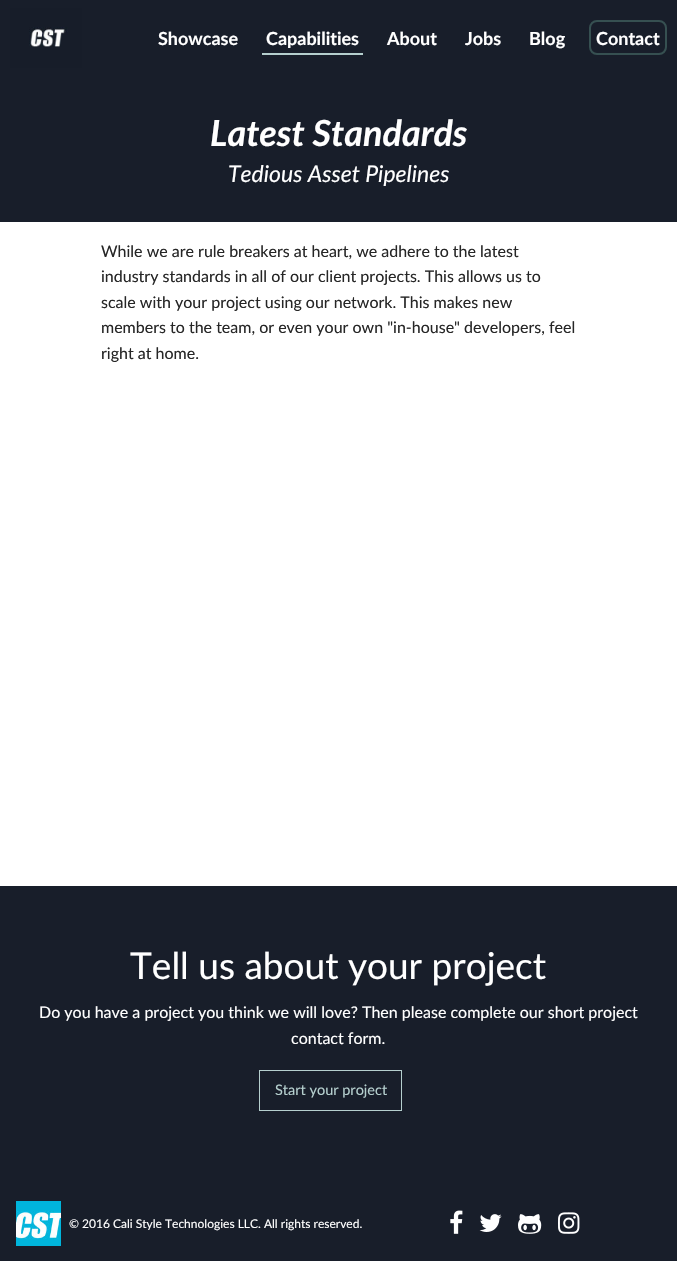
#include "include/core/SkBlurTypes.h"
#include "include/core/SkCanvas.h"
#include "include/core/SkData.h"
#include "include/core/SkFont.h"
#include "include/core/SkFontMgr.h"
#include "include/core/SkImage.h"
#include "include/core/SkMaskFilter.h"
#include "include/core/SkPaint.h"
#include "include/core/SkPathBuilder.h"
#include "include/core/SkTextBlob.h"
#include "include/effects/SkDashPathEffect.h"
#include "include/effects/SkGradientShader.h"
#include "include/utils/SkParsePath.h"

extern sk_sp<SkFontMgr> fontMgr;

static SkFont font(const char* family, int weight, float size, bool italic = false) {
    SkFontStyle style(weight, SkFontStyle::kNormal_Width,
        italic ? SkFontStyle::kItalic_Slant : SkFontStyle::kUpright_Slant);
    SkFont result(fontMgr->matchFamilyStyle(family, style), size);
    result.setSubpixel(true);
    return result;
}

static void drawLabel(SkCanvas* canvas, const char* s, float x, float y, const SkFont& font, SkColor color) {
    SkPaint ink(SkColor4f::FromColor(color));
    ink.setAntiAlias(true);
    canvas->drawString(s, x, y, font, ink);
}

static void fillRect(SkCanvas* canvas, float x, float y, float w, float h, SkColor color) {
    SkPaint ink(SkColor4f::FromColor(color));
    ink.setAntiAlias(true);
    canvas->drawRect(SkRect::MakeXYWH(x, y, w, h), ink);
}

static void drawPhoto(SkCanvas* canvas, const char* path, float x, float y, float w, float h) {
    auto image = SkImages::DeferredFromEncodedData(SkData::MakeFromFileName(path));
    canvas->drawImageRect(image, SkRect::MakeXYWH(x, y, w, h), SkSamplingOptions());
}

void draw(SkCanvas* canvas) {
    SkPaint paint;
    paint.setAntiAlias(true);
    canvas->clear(0xFFFFFFFF);
    fillRect(canvas, 0, 0, 677, 222, 0xFF181E2A);
    drawPhoto(canvas, "assets/img1.png", 10, 8, 72, 60);
    SkFont font1 = font("Lato", 700, 18);
    drawLabel(canvas, "Showcase", 158, 45, font1, 0xFFFFFFFF);
    fillRect(canvas, 262, 53, 101, 2, 0xFFB5CFCE);
    drawLabel(canvas, "Capabilities", 266, 45, font1, 0xFFFFFFFF);
    drawLabel(canvas, "About", 387, 45, font1, 0xFFFFFFFF);
    drawLabel(canvas, "Jobs", 465, 45, font1, 0xFFFFFFFF);
    drawLabel(canvas, "Blog", 529, 45, font1, 0xFFFFFFFF);
    paint.setStroke(true);
    paint.setStrokeWidth(2);
    paint.setColor(0xFF365051);
    canvas->drawRoundRect(SkRect::MakeXYWH(590, 21, 76, 33), 7, 7, paint);
    drawLabel(canvas, "Contact", 596, 45, font1, 0xFFFFFFFF);
    SkFont font2 = font("Lato", 700, 36, true);
    drawLabel(canvas, "Latest Standards", 210, 146, font2, 0xFFFFFFFF);
    SkFont font3 = font("Lato", 400, 23, true);
    drawLabel(canvas, "Tedious Asset Pipelines", 228, 182, font3, 0xFFFFFFFF);
    SkFont font4 = font("Lato", 400, 16);
    drawLabel(canvas, "While we are rule breakers at heart, we adhere to the latest", 101, 257, font4, 0xFF262626);
    drawLabel(canvas, "industry standards in all of our client projects. This allows us to", 101, 282, font4, 0xFF262626);
    drawLabel(canvas, "scale with your project using our network. This makes new", 101, 308, font4, 0xFF262626);
    drawLabel(canvas, "members to the team, or even your own \"in-house\" developers, feel", 101, 333, font4, 0xFF262626);
    drawLabel(canvas, "right at home.", 101, 359, font4, 0xFF262626);
    fillRect(canvas, 0, 886, 677, 375, 0xFF181E2A);
    SkFont font5 = font("Lato", 400, 37);
    drawLabel(canvas, "Tell us about your project", 130, 979, font5, 0xFFFFFFFF);
    drawLabel(canvas, "Do you have a project you think we will love? Then please complete our short project", 39, 1018, font4, 0xFFFFFFFF);
    drawLabel(canvas, "contact form.", 291, 1044, font4, 0xFFFFFFFF);
    paint.setStrokeWidth(1);
    paint.setColor(0xFFB5CFCE);
    canvas->drawRect(SkRect::MakeXYWH(259.5f, 1070.5f, 142, 40), paint);
    SkFont font6 = font("Lato", 400, 14.5f);
    drawLabel(canvas, "Start your project", 275, 1095, font6, 0xFFB5CFCE);
    drawPhoto(canvas, "assets/img2.png", 16, 1201, 45, 45);
    SkFont font7 = font("Lato", 400, 12);
    drawLabel(canvas, "© 2016 Cali Style Technologies LLC. All rights reserved.", 69, 1228, font7, 0xFFFFFFFF);
    drawPhoto(canvas, "assets/img3.png", 450, 1210, 13, 24);
    drawPhoto(canvas, "assets/img4.png", 479, 1214, 23, 18);
    drawPhoto(canvas, "assets/img5.png", 518, 1214, 24, 20);
    drawPhoto(canvas, "assets/img6.png", 558, 1212, 22, 22);
}
